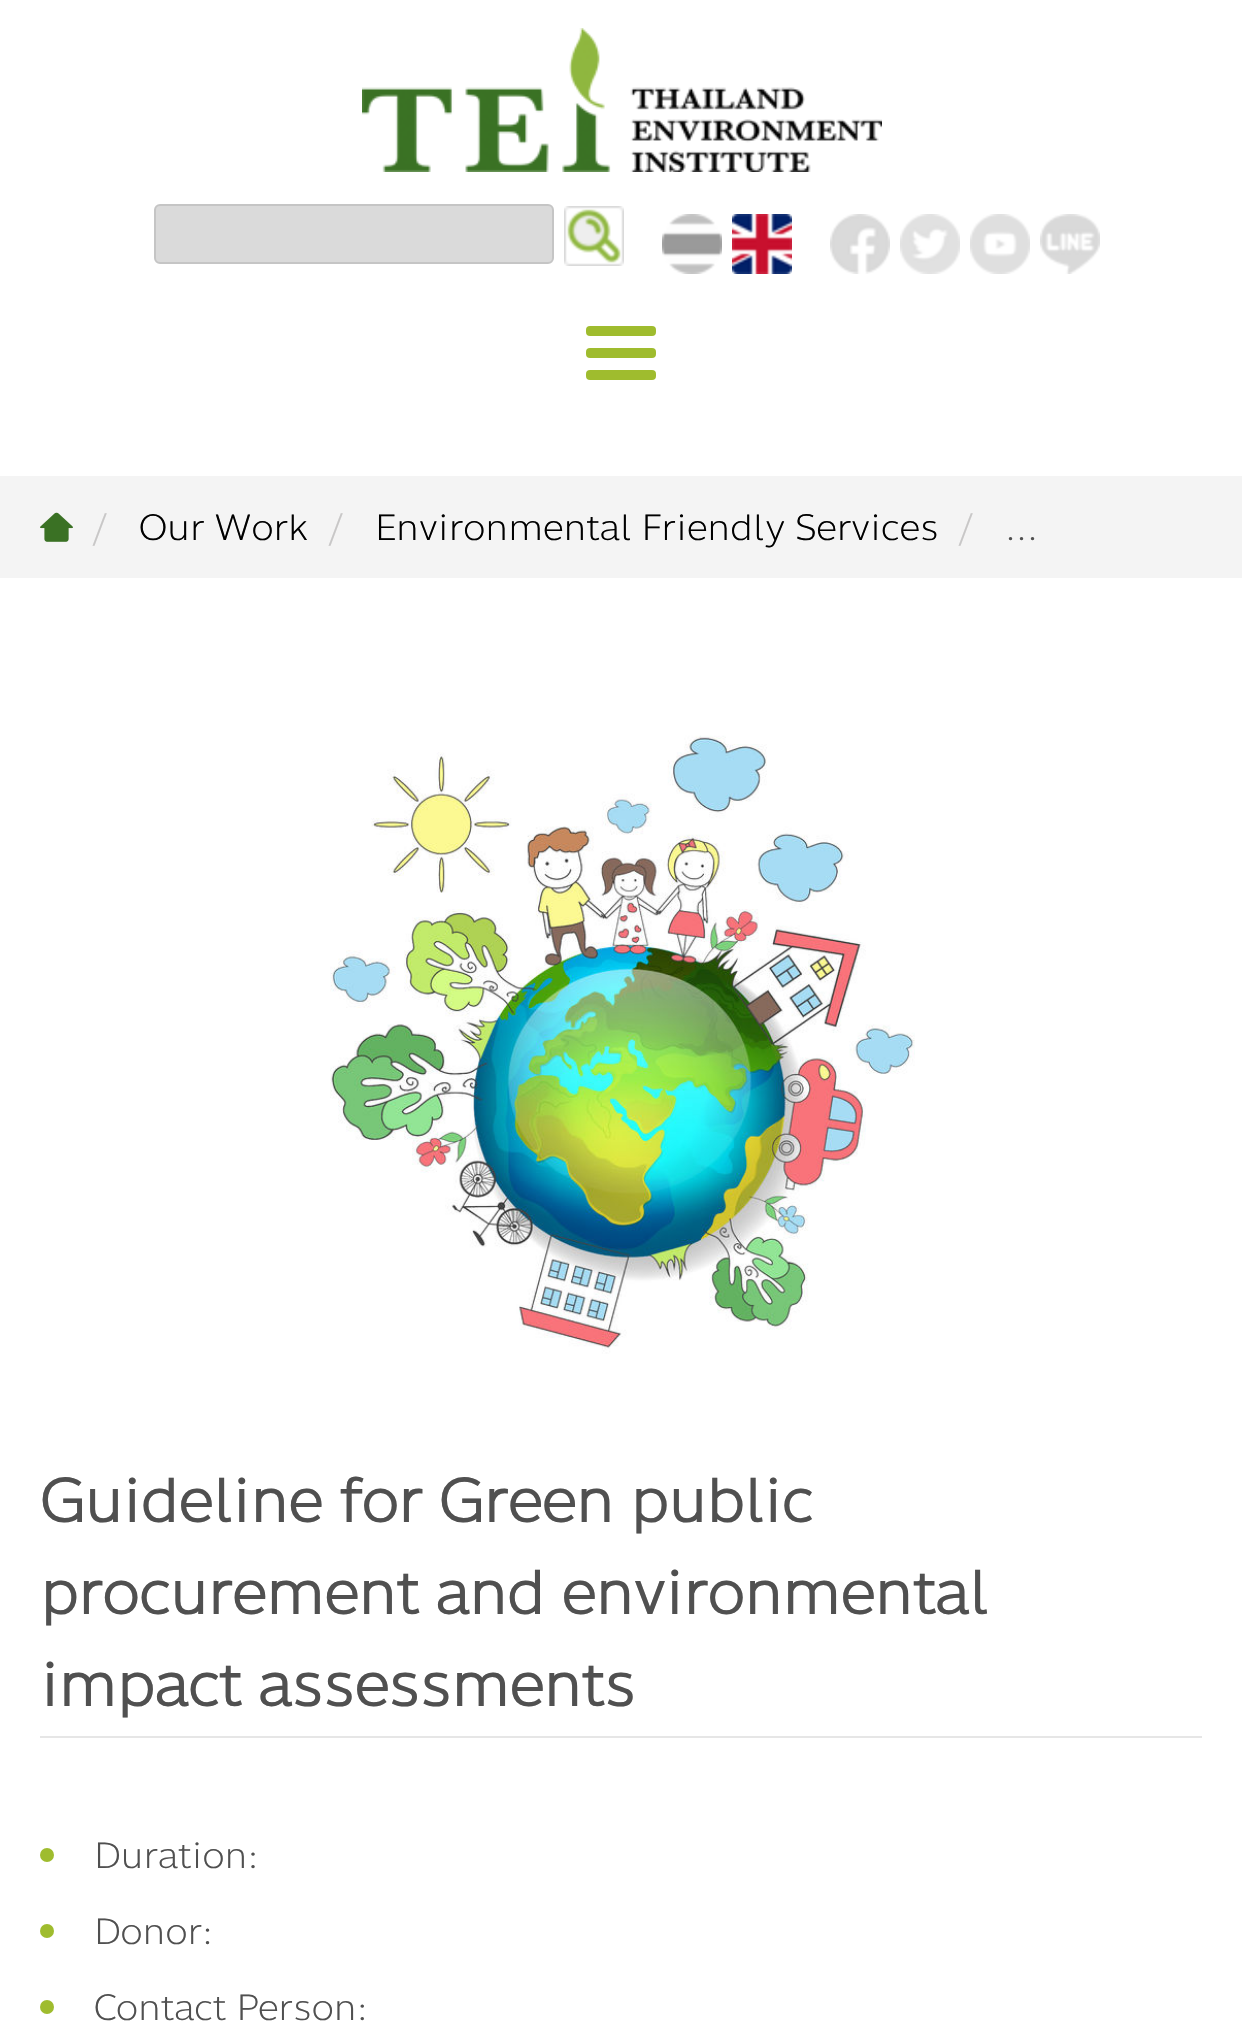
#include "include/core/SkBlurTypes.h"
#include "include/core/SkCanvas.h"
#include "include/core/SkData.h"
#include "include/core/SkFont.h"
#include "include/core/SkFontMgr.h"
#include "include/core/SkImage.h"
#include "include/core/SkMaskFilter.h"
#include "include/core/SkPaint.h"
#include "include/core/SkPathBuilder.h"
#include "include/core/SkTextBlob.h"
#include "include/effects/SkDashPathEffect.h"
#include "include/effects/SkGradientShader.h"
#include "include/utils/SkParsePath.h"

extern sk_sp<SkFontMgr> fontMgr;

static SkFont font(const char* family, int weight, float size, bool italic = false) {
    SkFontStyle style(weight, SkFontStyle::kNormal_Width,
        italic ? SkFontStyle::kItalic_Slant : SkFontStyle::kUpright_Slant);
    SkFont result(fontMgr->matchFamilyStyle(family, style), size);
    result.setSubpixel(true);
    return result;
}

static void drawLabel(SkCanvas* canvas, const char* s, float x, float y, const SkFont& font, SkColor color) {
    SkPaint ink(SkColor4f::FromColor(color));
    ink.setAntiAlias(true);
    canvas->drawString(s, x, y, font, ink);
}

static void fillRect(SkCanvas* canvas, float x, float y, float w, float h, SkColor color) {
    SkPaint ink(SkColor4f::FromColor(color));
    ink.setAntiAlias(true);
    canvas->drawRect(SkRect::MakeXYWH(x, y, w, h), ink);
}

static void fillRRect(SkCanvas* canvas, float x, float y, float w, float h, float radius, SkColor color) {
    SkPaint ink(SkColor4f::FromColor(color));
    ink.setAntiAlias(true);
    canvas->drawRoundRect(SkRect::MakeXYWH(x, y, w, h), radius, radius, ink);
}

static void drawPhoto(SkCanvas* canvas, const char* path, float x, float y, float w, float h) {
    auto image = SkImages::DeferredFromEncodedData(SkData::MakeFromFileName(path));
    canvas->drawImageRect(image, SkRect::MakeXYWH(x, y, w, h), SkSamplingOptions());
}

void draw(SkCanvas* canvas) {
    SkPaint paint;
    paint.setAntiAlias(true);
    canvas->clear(0xFFFFFFFF);
    drawPhoto(canvas, "assets/img1.png", 362, 28, 520, 144);
    paint.setColor(0xFFDADADA);
    canvas->drawRoundRect(SkRect::MakeXYWH(155, 205, 398, 58), 5, 5, paint);
    paint.setStroke(true);
    paint.setStrokeWidth(2);
    paint.setColor(0xFFC5C5C5);
    canvas->drawRoundRect(SkRect::MakeXYWH(155, 205, 398, 58), 5, 5, paint);
    drawPhoto(canvas, "assets/img2.png", 564, 206, 60, 60);
    drawPhoto(canvas, "assets/img3.png", 662, 214, 60, 60);
    drawPhoto(canvas, "assets/img4.png", 732, 214, 60, 60);
    drawPhoto(canvas, "assets/img5.png", 830, 214, 60, 60);
    drawPhoto(canvas, "assets/img6.png", 900, 214, 60, 60);
    drawPhoto(canvas, "assets/img7.png", 970, 214, 60, 60);
    drawPhoto(canvas, "assets/img8.png", 1040, 214, 60, 60);
    fillRRect(canvas, 586, 326, 70, 10, 4, 0xFF9FBC2E);
    fillRRect(canvas, 586, 348, 70, 10, 4, 0xFF9FBC2E);
    fillRRect(canvas, 586, 370, 70, 10, 4, 0xFF9FBC2E);
    fillRect(canvas, 0, 476, 1242, 102, 0xFFF4F4F4);
    drawPhoto(canvas, "assets/img9.png", 40, 512, 33, 30);
    SkFont font1 = font("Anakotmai", 300, 36);
    drawLabel(canvas, "/", 91, 540, font1, 0xFFC8C7C7);
    drawLabel(canvas, "Our Work", 139, 540, font1, 0xFF000000);
    drawLabel(canvas, "/", 327, 540, font1, 0xFFC8C7C7);
    drawLabel(canvas, "Environmental Friendly Services", 375, 540, font1, 0xFF000000);
    drawLabel(canvas, "/", 957, 540, font1, 0xFFC8C7C7);
    drawLabel(canvas, "...", 1005, 540, font1, 0xFF505050);
    drawPhoto(canvas, "assets/img10.png", 330, 735, 585, 619);
    fillRect(canvas, 40, 1736, 1162, 2, 0xFFE6E6E6);
    SkFont font2 = font("Anakotmai", 700, 60);
    drawLabel(canvas, "Guideline for Green public", 40, 1522, font2, 0xFF505050);
    drawLabel(canvas, "procurement and environmental", 40, 1614, font2, 0xFF505050);
    drawLabel(canvas, "impact assessments", 40, 1706, font2, 0xFF505050);
    paint.setStroke(false);
    paint.setColor(0xFF9FBC2E);
    canvas->drawCircle(47, 1855, 7, paint);
    drawLabel(canvas, "Duration:", 94, 1868, font1, 0xFF505050);
    canvas->drawCircle(47, 1931, 7, paint);
    drawLabel(canvas, "Donor:", 94, 1944, font1, 0xFF505050);
    canvas->drawCircle(47, 2007, 7, paint);
    drawLabel(canvas, "Contact Person:", 94, 2020, font1, 0xFF505050);
}
